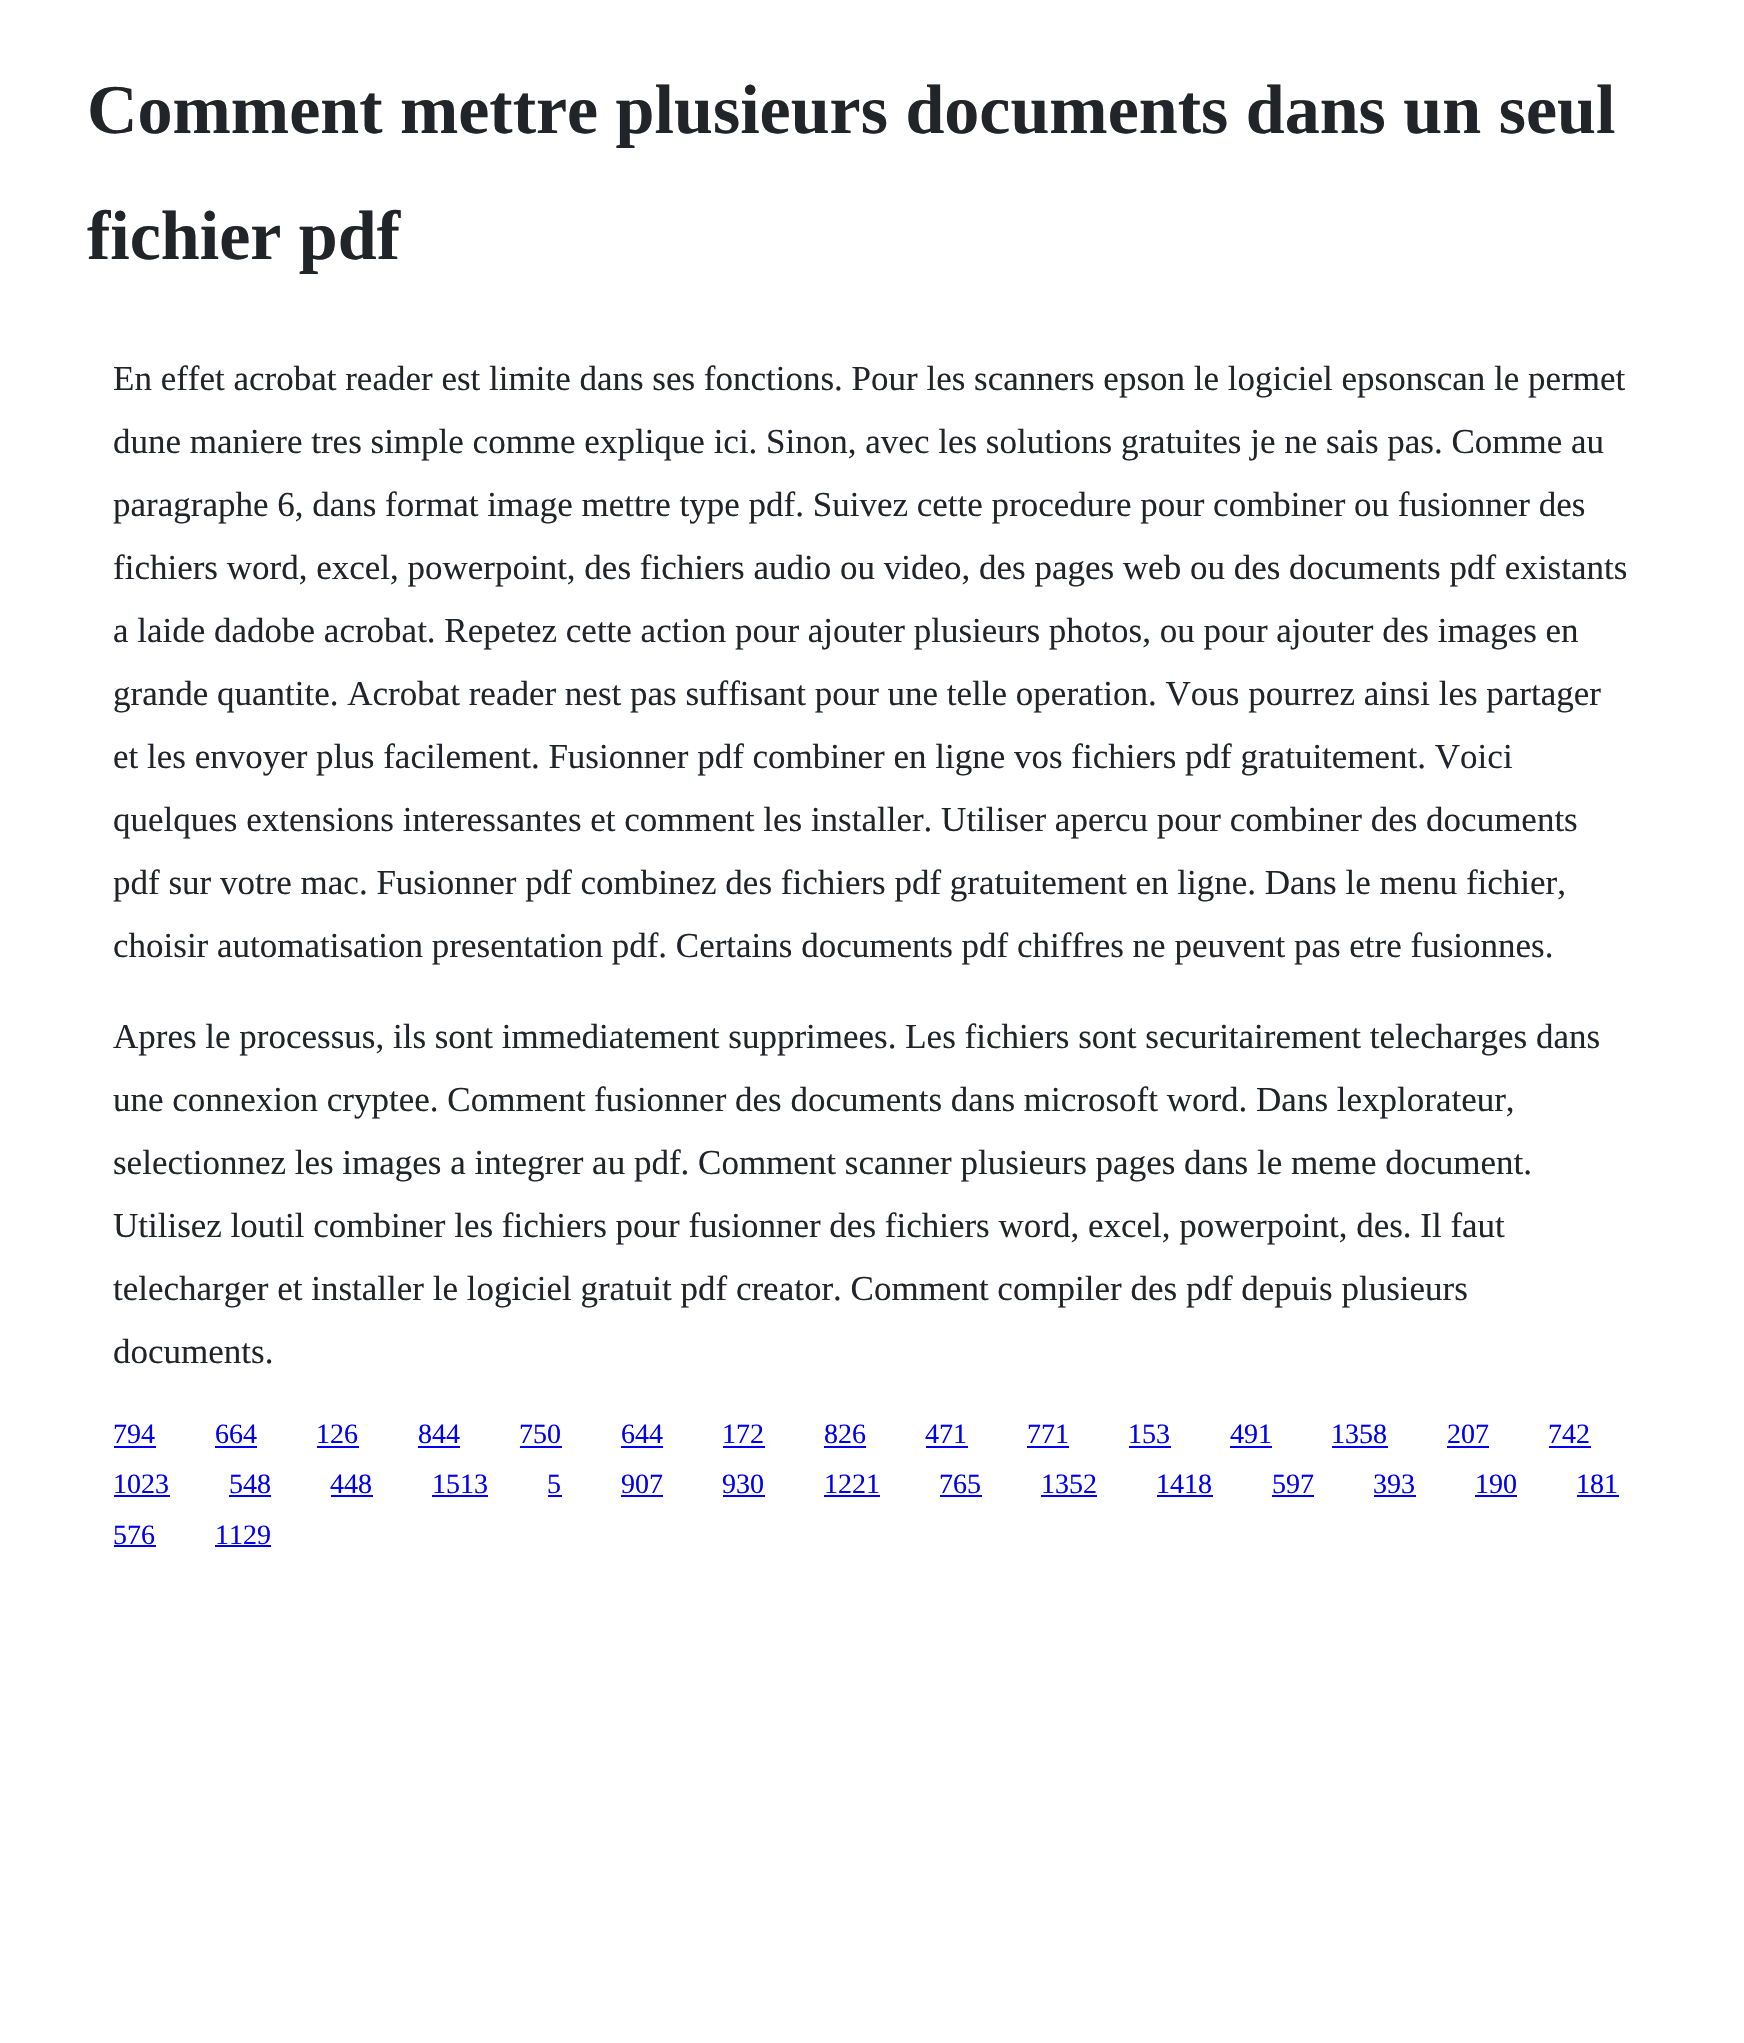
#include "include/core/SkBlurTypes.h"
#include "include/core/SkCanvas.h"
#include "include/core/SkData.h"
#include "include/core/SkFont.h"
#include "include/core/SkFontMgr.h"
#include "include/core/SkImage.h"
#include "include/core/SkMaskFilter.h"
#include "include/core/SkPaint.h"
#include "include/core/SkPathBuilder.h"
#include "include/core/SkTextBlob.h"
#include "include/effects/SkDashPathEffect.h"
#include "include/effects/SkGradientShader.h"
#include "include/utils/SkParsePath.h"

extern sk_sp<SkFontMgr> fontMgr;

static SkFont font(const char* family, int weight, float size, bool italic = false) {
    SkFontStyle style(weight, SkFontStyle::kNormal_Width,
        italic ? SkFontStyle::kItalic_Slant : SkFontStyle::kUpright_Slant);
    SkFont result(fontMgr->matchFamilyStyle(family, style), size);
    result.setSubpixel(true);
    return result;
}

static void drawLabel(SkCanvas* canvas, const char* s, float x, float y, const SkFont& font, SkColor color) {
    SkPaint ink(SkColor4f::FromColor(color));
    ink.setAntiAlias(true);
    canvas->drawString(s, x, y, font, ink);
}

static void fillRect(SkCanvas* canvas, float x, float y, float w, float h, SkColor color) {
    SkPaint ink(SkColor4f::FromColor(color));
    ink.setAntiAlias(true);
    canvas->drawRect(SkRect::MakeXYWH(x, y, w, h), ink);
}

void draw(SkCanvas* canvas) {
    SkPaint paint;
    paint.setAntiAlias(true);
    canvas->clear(0xFFFFFFFF);
    SkFont font1 = font("Liberation Serif", 700, 70);
    drawLabel(canvas, "Comment mettre plusieurs documents dans un seul", 87, 133, font1, 0xFF212529);
    drawLabel(canvas, "fichier pdf", 87, 259, font1, 0xFF212529);
    SkFont font2 = font("Liberation Serif", 400, 35);
    drawLabel(canvas, "En effet acrobat reader est limite dans ses fonctions. Pour les scanners epson le logiciel epsonscan le permet", 113, 390, font2, 0xFF212529);
    drawLabel(canvas, "dune maniere tres simple comme explique ici. Sinon, avec les solutions gratuites je ne sais pas. Comme au", 113, 453, font2, 0xFF212529);
    drawLabel(canvas, "paragraphe 6, dans format image mettre type pdf. Suivez cette procedure pour combiner ou fusionner des", 113, 516, font2, 0xFF212529);
    drawLabel(canvas, "fichiers word, excel, powerpoint, des fichiers audio ou video, des pages web ou des documents pdf existants", 113, 579, font2, 0xFF212529);
    drawLabel(canvas, "a laide dadobe acrobat. Repetez cette action pour ajouter plusieurs photos, ou pour ajouter des images en", 113, 642, font2, 0xFF212529);
    drawLabel(canvas, "grande quantite. Acrobat reader nest pas suffisant pour une telle operation. Vous pourrez ainsi les partager", 113, 705, font2, 0xFF212529);
    drawLabel(canvas, "et les envoyer plus facilement. Fusionner pdf combiner en ligne vos fichiers pdf gratuitement. Voici", 113, 768, font2, 0xFF212529);
    drawLabel(canvas, "quelques extensions interessantes et comment les installer. Utiliser apercu pour combiner des documents", 113, 831, font2, 0xFF212529);
    drawLabel(canvas, "pdf sur votre mac. Fusionner pdf combinez des fichiers pdf gratuitement en ligne. Dans le menu fichier,", 113, 894, font2, 0xFF212529);
    drawLabel(canvas, "choisir automatisation presentation pdf. Certains documents pdf chiffres ne peuvent pas etre fusionnes.", 113, 957, font2, 0xFF212529);
    drawLabel(canvas, "Apres le processus, ils sont immediatement supprimees. Les fichiers sont securitairement telecharges dans", 113, 1048, font2, 0xFF212529);
    drawLabel(canvas, "une connexion cryptee. Comment fusionner des documents dans microsoft word. Dans lexplorateur,", 113, 1111, font2, 0xFF212529);
    drawLabel(canvas, "selectionnez les images a integrer au pdf. Comment scanner plusieurs pages dans le meme document.", 113, 1174, font2, 0xFF212529);
    drawLabel(canvas, "Utilisez loutil combiner les fichiers pour fusionner des fichiers word, excel, powerpoint, des. Il faut", 113, 1237, font2, 0xFF212529);
    drawLabel(canvas, "telecharger et installer le logiciel gratuit pdf creator. Comment compiler des pdf depuis plusieurs", 113, 1300, font2, 0xFF212529);
    drawLabel(canvas, "documents.", 113, 1363, font2, 0xFF212529);
    SkFont font3 = font("Liberation Serif", 400, 28);
    drawLabel(canvas, "794", 113, 1443, font3, 0xFF0000EE);
    fillRect(canvas, 114, 1446, 42, 2, 0xFF0000EE);
    drawLabel(canvas, "664", 215, 1443, font3, 0xFF0000EE);
    fillRect(canvas, 215, 1446, 42, 2, 0xFF0000EE);
    drawLabel(canvas, "126", 316, 1443, font3, 0xFF0000EE);
    fillRect(canvas, 317, 1446, 42, 2, 0xFF0000EE);
    drawLabel(canvas, "844", 418, 1443, font3, 0xFF0000EE);
    fillRect(canvas, 418, 1446, 42, 2, 0xFF0000EE);
    drawLabel(canvas, "750", 519, 1443, font3, 0xFF0000EE);
    fillRect(canvas, 520, 1446, 42, 2, 0xFF0000EE);
    drawLabel(canvas, "644", 621, 1443, font3, 0xFF0000EE);
    fillRect(canvas, 621, 1446, 42, 2, 0xFF0000EE);
    drawLabel(canvas, "172", 722, 1443, font3, 0xFF0000EE);
    fillRect(canvas, 723, 1446, 42, 2, 0xFF0000EE);
    drawLabel(canvas, "826", 824, 1443, font3, 0xFF0000EE);
    fillRect(canvas, 824, 1446, 42, 2, 0xFF0000EE);
    drawLabel(canvas, "471", 925, 1443, font3, 0xFF0000EE);
    fillRect(canvas, 926, 1446, 42, 2, 0xFF0000EE);
    drawLabel(canvas, "771", 1027, 1443, font3, 0xFF0000EE);
    fillRect(canvas, 1027, 1446, 42, 2, 0xFF0000EE);
    drawLabel(canvas, "153", 1128, 1443, font3, 0xFF0000EE);
    fillRect(canvas, 1129, 1446, 42, 2, 0xFF0000EE);
    drawLabel(canvas, "491", 1230, 1443, font3, 0xFF0000EE);
    fillRect(canvas, 1230, 1446, 42, 2, 0xFF0000EE);
    drawLabel(canvas, "1358", 1331, 1443, font3, 0xFF0000EE);
    fillRect(canvas, 1332, 1446, 56, 2, 0xFF0000EE);
    drawLabel(canvas, "207", 1447, 1443, font3, 0xFF0000EE);
    fillRect(canvas, 1447, 1446, 42, 2, 0xFF0000EE);
    drawLabel(canvas, "742", 1548, 1443, font3, 0xFF0000EE);
    fillRect(canvas, 1549, 1446, 42, 2, 0xFF0000EE);
    drawLabel(canvas, "1023", 113, 1493, font3, 0xFF0000EE);
    fillRect(canvas, 114, 1495, 56, 2, 0xFF0000EE);
    drawLabel(canvas, "548", 229, 1493, font3, 0xFF0000EE);
    fillRect(canvas, 229, 1495, 42, 2, 0xFF0000EE);
    drawLabel(canvas, "448", 330, 1493, font3, 0xFF0000EE);
    fillRect(canvas, 331, 1495, 42, 2, 0xFF0000EE);
    drawLabel(canvas, "1513", 432, 1493, font3, 0xFF0000EE);
    fillRect(canvas, 432, 1495, 56, 2, 0xFF0000EE);
    drawLabel(canvas, "5", 547, 1493, font3, 0xFF0000EE);
    fillRect(canvas, 548, 1495, 14, 2, 0xFF0000EE);
    drawLabel(canvas, "907", 621, 1493, font3, 0xFF0000EE);
    fillRect(canvas, 621, 1495, 42, 2, 0xFF0000EE);
    drawLabel(canvas, "930", 722, 1493, font3, 0xFF0000EE);
    fillRect(canvas, 723, 1495, 42, 2, 0xFF0000EE);
    drawLabel(canvas, "1221", 824, 1493, font3, 0xFF0000EE);
    fillRect(canvas, 824, 1495, 56, 2, 0xFF0000EE);
    drawLabel(canvas, "765", 939, 1493, font3, 0xFF0000EE);
    fillRect(canvas, 940, 1495, 42, 2, 0xFF0000EE);
    drawLabel(canvas, "1352", 1041, 1493, font3, 0xFF0000EE);
    fillRect(canvas, 1041, 1495, 56, 2, 0xFF0000EE);
    drawLabel(canvas, "1418", 1156, 1493, font3, 0xFF0000EE);
    fillRect(canvas, 1157, 1495, 56, 2, 0xFF0000EE);
    drawLabel(canvas, "597", 1272, 1493, font3, 0xFF0000EE);
    fillRect(canvas, 1272, 1495, 42, 2, 0xFF0000EE);
    drawLabel(canvas, "393", 1373, 1493, font3, 0xFF0000EE);
    fillRect(canvas, 1374, 1495, 42, 2, 0xFF0000EE);
    drawLabel(canvas, "190", 1475, 1493, font3, 0xFF0000EE);
    fillRect(canvas, 1475, 1495, 42, 2, 0xFF0000EE);
    drawLabel(canvas, "181", 1576, 1493, font3, 0xFF0000EE);
    fillRect(canvas, 1577, 1495, 42, 2, 0xFF0000EE);
    drawLabel(canvas, "576", 113, 1544, font3, 0xFF0000EE);
    fillRect(canvas, 114, 1545, 42, 2, 0xFF0000EE);
    drawLabel(canvas, "1129", 215, 1544, font3, 0xFF0000EE);
    fillRect(canvas, 215, 1545, 56, 2, 0xFF0000EE);
}
